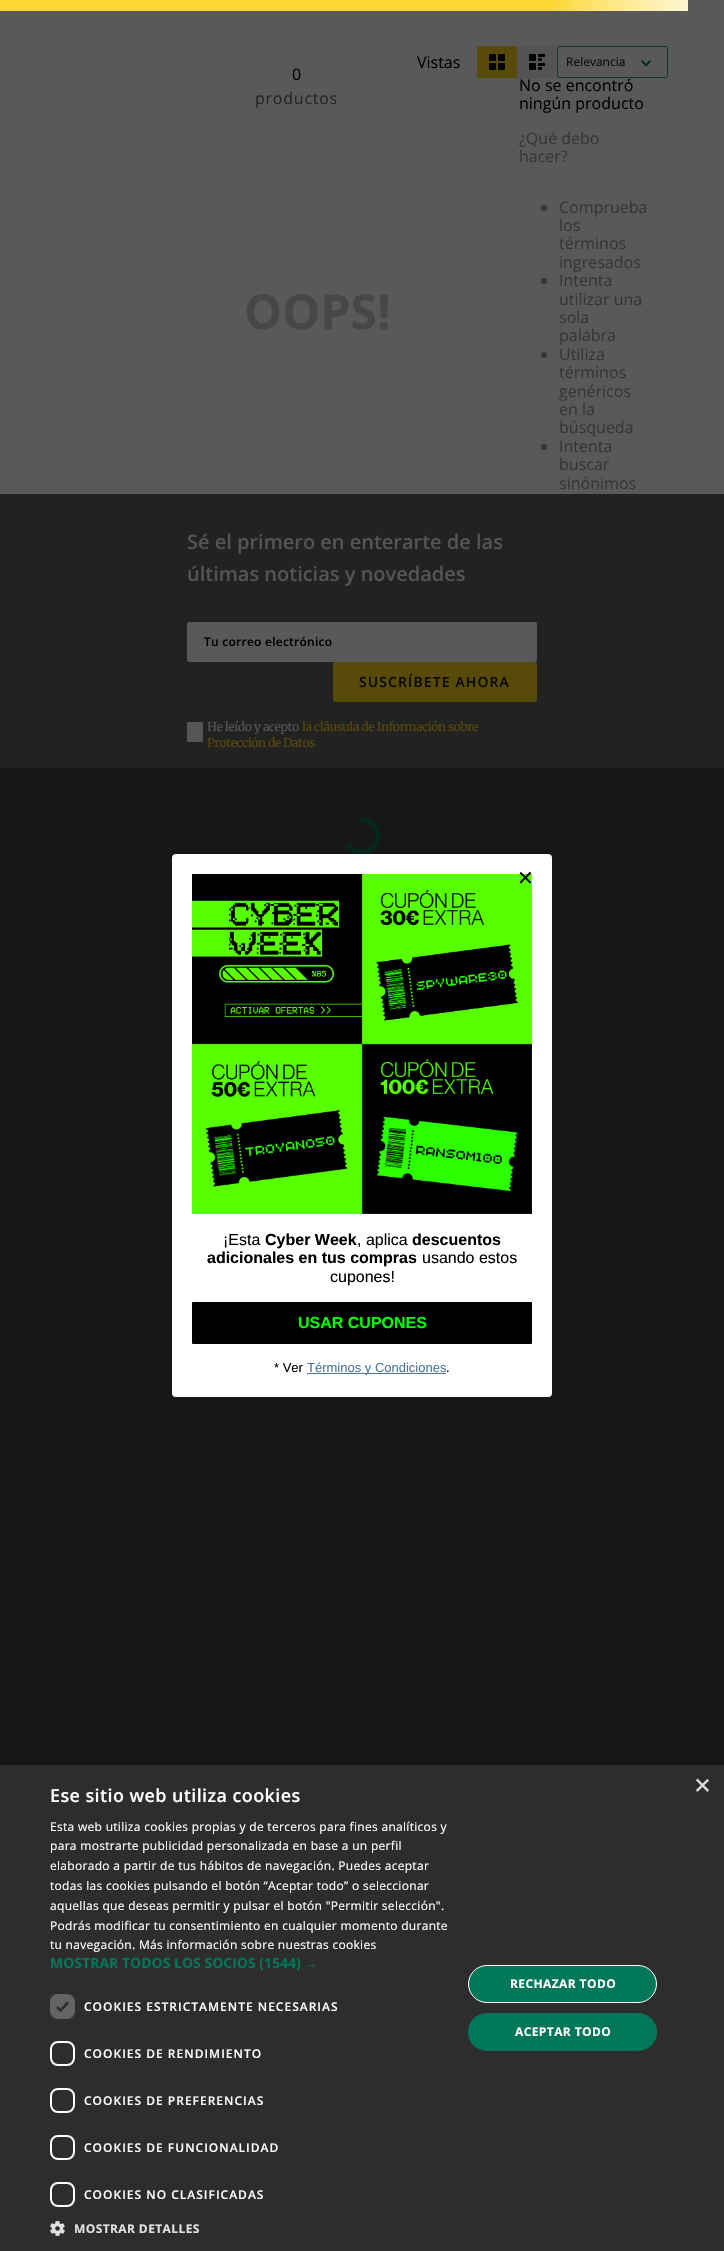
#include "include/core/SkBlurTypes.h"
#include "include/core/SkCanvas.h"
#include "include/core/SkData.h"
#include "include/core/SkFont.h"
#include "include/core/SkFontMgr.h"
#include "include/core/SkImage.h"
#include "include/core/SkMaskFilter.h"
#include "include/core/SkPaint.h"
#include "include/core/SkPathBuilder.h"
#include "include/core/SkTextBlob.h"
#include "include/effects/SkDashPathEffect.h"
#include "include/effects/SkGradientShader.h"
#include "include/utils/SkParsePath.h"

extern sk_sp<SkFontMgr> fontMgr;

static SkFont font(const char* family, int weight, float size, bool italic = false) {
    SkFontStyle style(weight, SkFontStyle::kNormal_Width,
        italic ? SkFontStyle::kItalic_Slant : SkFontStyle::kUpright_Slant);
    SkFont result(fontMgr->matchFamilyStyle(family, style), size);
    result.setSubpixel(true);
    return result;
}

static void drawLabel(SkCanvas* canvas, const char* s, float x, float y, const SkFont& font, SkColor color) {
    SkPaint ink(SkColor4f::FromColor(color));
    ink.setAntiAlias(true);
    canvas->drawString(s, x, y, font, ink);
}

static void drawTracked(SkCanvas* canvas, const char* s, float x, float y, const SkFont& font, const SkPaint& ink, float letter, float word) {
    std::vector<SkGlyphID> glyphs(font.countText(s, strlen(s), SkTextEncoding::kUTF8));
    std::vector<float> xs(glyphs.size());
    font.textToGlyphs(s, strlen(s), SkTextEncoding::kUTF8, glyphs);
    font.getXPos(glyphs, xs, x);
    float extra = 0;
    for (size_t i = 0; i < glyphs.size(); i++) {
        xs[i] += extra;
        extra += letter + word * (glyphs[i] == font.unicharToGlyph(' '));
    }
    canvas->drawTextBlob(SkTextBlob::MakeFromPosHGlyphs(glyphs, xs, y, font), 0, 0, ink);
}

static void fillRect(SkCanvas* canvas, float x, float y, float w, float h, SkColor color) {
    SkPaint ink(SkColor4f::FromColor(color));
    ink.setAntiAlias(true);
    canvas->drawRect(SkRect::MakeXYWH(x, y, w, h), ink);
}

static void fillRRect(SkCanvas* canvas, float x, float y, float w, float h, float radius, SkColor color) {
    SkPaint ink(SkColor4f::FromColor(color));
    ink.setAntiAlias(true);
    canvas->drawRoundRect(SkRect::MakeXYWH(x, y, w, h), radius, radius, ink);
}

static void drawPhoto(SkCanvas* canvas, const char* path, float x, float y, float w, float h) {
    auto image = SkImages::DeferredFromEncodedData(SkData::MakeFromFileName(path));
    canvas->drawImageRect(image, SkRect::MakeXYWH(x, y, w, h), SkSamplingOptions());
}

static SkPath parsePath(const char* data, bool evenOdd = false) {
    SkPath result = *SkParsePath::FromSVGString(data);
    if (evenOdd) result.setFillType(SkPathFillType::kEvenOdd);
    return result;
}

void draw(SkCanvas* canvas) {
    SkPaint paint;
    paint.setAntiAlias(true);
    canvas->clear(0xFF595959);
    {
        const SkColor colors[] = {0xFFFCD733, 0xFFFEE98E, 0xFFFEF6D2};
        const float stops[] = {0.8f, 0.9f, 1};
        const SkPoint ends[] = {{0, 5.6f}, {688, 5.6f}};
        paint.setShader(SkGradientShader::MakeLinear(ends, colors, stops, 3, SkTileMode::kClamp));
        paint.setAlpha(255);
    }
    canvas->drawRect(SkRect::MakeXYWH(0, 0, 688, 11), paint);
    SkFont font1 = font("Open Sans", 400, 16);
    drawLabel(canvas, "Vistas", 417, 68, font1, 0xFF000000);
    fillRect(canvas, 477, 46, 40, 32, 0xFF584A0A);
    drawPhoto(canvas, "assets/img1.png", 489, 54, 16, 16);
    paint.setShader(nullptr);
    paint.setColor(0xFF545454);
    canvas->drawPath(parsePath("M517 46H553C555 46 557 48 557 50V74C557 76 555 78 553 78H517Z"), paint);
    drawPhoto(canvas, "assets/img2.png", 529, 54, 16, 16);
    drawLabel(canvas, "0", 292, 80, font1, 0xFF000000);
    paint.setColor(0xFF242424);
    drawTracked(canvas, "productos", 255, 104, font1, paint, 0.75f, 0);
    paint.setStroke(true);
    paint.setStrokeWidth(1);
    paint.setColor(0xFF0E392F);
    canvas->drawRoundRect(SkRect::MakeXYWH(557.5f, 46.5f, 110, 31), 1.5f, 1.5f, paint);
    SkFont font2 = font("Open Sans", 400, 12);
    drawLabel(canvas, "Relevancia", 566, 66, font2, 0xFF090909);
    drawPhoto(canvas, "assets/img3.png", 641, 60, 10, 7);
    SkFont font3 = font("Open Sans", 700, 48);
    drawLabel(canvas, "OOPS!", 244, 329, font3, 0xFF474747);
    drawLabel(canvas, "No se encontró", 519, 91, font1, 0xFF000000);
    drawLabel(canvas, "ningún producto", 519, 109, font1, 0xFF000000);
    drawLabel(canvas, "¿Qué debo", 519, 144, font1, 0xFF353536);
    drawLabel(canvas, "hacer?", 519, 162, font1, 0xFF353536);
    paint.setStroke(false);
    paint.setColor(0xFF353536);
    canvas->drawCircle(544, 208, 3, paint);
    drawLabel(canvas, "Comprueba", 559, 213, font1, 0xFF353536);
    drawLabel(canvas, "los", 559, 231, font1, 0xFF353536);
    drawLabel(canvas, "términos", 559, 249, font1, 0xFF353536);
    drawLabel(canvas, "ingresados", 559, 268, font1, 0xFF353536);
    canvas->drawCircle(544, 281, 3, paint);
    drawLabel(canvas, "Intenta", 559, 286, font1, 0xFF353536);
    drawLabel(canvas, "utilizar una", 559, 305, font1, 0xFF353536);
    drawLabel(canvas, "sola", 559, 323, font1, 0xFF353536);
    drawLabel(canvas, "palabra", 559, 341, font1, 0xFF353536);
    canvas->drawCircle(544, 355, 3, paint);
    drawLabel(canvas, "Utiliza", 559, 360, font1, 0xFF353536);
    drawLabel(canvas, "términos", 559, 378, font1, 0xFF353536);
    drawLabel(canvas, "genéricos", 559, 397, font1, 0xFF353536);
    drawLabel(canvas, "en la", 559, 415, font1, 0xFF353536);
    drawLabel(canvas, "búsqueda", 559, 433, font1, 0xFF353536);
    canvas->drawCircle(544, 447, 3, paint);
    drawLabel(canvas, "Intenta", 559, 452, font1, 0xFF353536);
    drawLabel(canvas, "buscar", 559, 470, font1, 0xFF353536);
    drawLabel(canvas, "sinónimos", 559, 489, font1, 0xFF353536);
    fillRect(canvas, 0, 768, 724, 997, 0xFF171717);
    fillRect(canvas, 0, 494, 724, 274, 0xFF222222);
    SkFont font4 = font("Open Sans", 600, 20);
    drawLabel(canvas, "Sé el primero en enterarte de las", 187, 549, font4, 0xFF545454);
    drawLabel(canvas, "últimas noticias y novedades", 187, 581, font4, 0xFF545454);
    fillRRect(canvas, 187, 622, 350, 40, 2, 0xFF595959);
    SkFont font5 = font("Open Sans", 600, 12);
    paint.setColor(0xFF000000);
    drawTracked(canvas, "Tu correo electrónico", 204, 646, font5, paint, 0.25f, 0);
    paint.setColor(0xFF584A0A);
    canvas->drawRoundRect(SkRect::MakeXYWH(334, 663, 202, 38), 1, 1, paint);
    paint.setStroke(true);
    paint.setStrokeWidth(2);
    canvas->drawRoundRect(SkRect::MakeXYWH(334, 663, 202, 38), 1, 1, paint);
    SkFont font6 = font("Open Sans", 600, 14);
    paint.setStroke(false);
    paint.setColor(0xFF090701);
    drawTracked(canvas, "SUSCRÍBETE AHORA", 359, 687, font6, paint, 1.1f, 0);
    paint.setStroke(true);
    paint.setColor(0xFF4F5051);
    canvas->drawRoundRect(SkRect::MakeXYWH(188, 723, 14, 18), 1, 1, paint);
    fillRRect(canvas, 187, 722, 16, 20, 1, 0xFF565656);
    SkFont font7 = font("Merriweather", 400, 12);
    paint.setStroke(false);
    paint.setColor(0xFF545454);
    drawTracked(canvas, "He leído y acepto", 207, 731, font7, paint, -0.5f, 0);
    paint.setColor(0xFF584A0A);
    drawTracked(canvas, "la cláusula de Información sobre", 302, 731, font7, paint, -0.5f, 0);
    drawTracked(canvas, "Protección de Datos", 207, 747, font7, paint, -0.5f, 0);
    paint.setStroke(true);
    paint.setStrokeWidth(4);
    paint.setStrokeCap(SkPaint::kRound_Cap);
    paint.setColor(0xFF002A1F);
    paint.setPathEffect(SkDashPathEffect::Make({{0, 0, 65.35f, 100.53f}}, 0.4f));
    canvas->drawPath(parsePath("M362 820C371 820 378 827 378 836C378 845 371 852 362 852C353 852 346 845 346 836C346 827 353 820 362 820Z"), paint);
    paint.setPathEffect(nullptr);
    fillRRect(canvas, 172, 854, 380, 543, 4, 0xFFFFFFFF);
    drawPhoto(canvas, "assets/img4.png", 192, 874, 340, 340);
    SkFont font8 = font("DejaVu Sans", 400, 20);
    drawLabel(canvas, "✕", 517, 885, font8, 0xFF000000);
    SkFont font9 = font("Liberation Sans", 400, 16);
    drawLabel(canvas, "¡Esta", 223, 1245, font9, 0xFF000000);
    SkFont font10 = font("Liberation Sans", 700, 16);
    drawLabel(canvas, "Cyber Week", 265, 1245, font10, 0xFF000000);
    drawLabel(canvas, ", aplica", 357, 1245, font9, 0xFF000000);
    drawLabel(canvas, "descuentos", 412, 1245, font10, 0xFF000000);
    drawLabel(canvas, "adicionales en tus compras", 207, 1263, font10, 0xFF000000);
    drawLabel(canvas, "usando estos", 422, 1263, font9, 0xFF000000);
    drawLabel(canvas, "cupones!", 330, 1282, font9, 0xFF000000);
    fillRRect(canvas, 192, 1302, 340, 42, 1, 0xFF000000);
    drawLabel(canvas, "USAR CUPONES", 298, 1328, font10, 0xFF00FF00);
    SkFont font11 = font("Liberation Sans", 400, 13);
    drawLabel(canvas, "* Ver", 274, 1372, font11, 0xFF000000);
    fillRect(canvas, 307, 1373, 139, 1, 0xFF4C759B);
    drawLabel(canvas, "Términos y Condiciones", 307, 1372, font11, 0xFF4C759B);
    drawLabel(canvas, ".", 446, 1372, font11, 0xFF000000);
    paint.setStroke(false);
    paint.setColor(0x59000000);
    paint.setMaskFilter(SkMaskFilter::MakeBlur(kNormal_SkBlurStyle, 4));
    canvas->drawRect(SkRect::MakeXYWH(1, 1767, 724, 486), paint);
    paint.setMaskFilter(nullptr);
    fillRect(canvas, 0, 1765, 724, 486, 0xFF2D2D2D);
    SkFont font12 = font("Liberation Sans", 400, 29);
    drawLabel(canvas, "×", 694, 1795, font12, 0xFFE0E0E0);
    SkFont font13 = font("Open Sans", 600, 18);
    paint.setColor(0xFFFFFFFF);
    drawTracked(canvas, "Ese sitio web utiliza cookies", 50, 1802, font13, paint, 0.4f, 0);
    drawTracked(canvas, "Esta web utiliza cookies propias y de terceros para fines analíticos y", 50, 1831, font2, paint, 0.3f, 0);
    drawTracked(canvas, "para mostrarte publicidad personalizada en base a un perfil", 50, 1850, font2, paint, 0.3f, 0);
    drawTracked(canvas, "elaborado a partir de tus hábitos de navegación. Puedes aceptar", 50, 1870, font2, paint, 0.3f, 0);
    drawTracked(canvas, "todas las cookies pulsando el botón “Aceptar todo” o seleccionar", 50, 1890, font2, paint, 0.3f, 0);
    drawTracked(canvas, "aquellas que deseas permitir y pulsar el botón \"Permitir selección\".", 50, 1910, font2, paint, 0.3f, 0);
    drawTracked(canvas, "Podrás modificar tu consentimiento en cualquier momento durante", 50, 1930, font2, paint, 0.3f, 0);
    drawTracked(canvas, "tu navegación. Más información sobre nuestras cookies", 50, 1949, font2, paint, 0.3f, 0);
    SkFont font14 = font("Open Sans", 700, 14);
    drawLabel(canvas, "MOSTRAR TODOS LOS SOCIOS (1544)", 50, 1968, font14, 0xFF007759);
    SkFont font15 = font("Liberation Sans", 700, 14);
    drawLabel(canvas, "→", 304, 1968, font15, 0xFF007759);
    fillRRect(canvas, 50, 1994, 25, 25, 8, 0xFF646464);
    paint.setStroke(true);
    paint.setStrokeWidth(2.6f);
    paint.setStrokeCap(SkPaint::kButt_Cap);
    paint.setColor(0xFF2D2D2D);
    canvas->drawPath(parsePath("M57 2007L60.5 2010.5L68 2002.5"), paint);
    paint.setStroke(false);
    paint.setColor(0xFFFFFFFF);
    drawTracked(canvas, "COOKIES ESTRICTAMENTE NECESARIAS", 84, 2011, font5, paint, 1, 0);
    paint.setStroke(true);
    paint.setStrokeWidth(2);
    canvas->drawRoundRect(SkRect::MakeXYWH(51, 2042, 23, 23), 7, 7, paint);
    paint.setStroke(false);
    drawTracked(canvas, "COOKIES DE RENDIMIENTO", 84, 2058, font5, paint, 1, 0);
    paint.setStroke(true);
    canvas->drawRoundRect(SkRect::MakeXYWH(51, 2089, 23, 23), 7, 7, paint);
    paint.setStroke(false);
    drawTracked(canvas, "COOKIES DE PREFERENCIAS", 84, 2105, font5, paint, 1, 0);
    paint.setStroke(true);
    canvas->drawRoundRect(SkRect::MakeXYWH(51, 2136, 23, 23), 7, 7, paint);
    paint.setStroke(false);
    drawTracked(canvas, "COOKIES DE FUNCIONALIDAD", 84, 2152, font5, paint, 1, 0);
    paint.setStroke(true);
    canvas->drawRoundRect(SkRect::MakeXYWH(51, 2183, 23, 23), 7, 7, paint);
    paint.setStroke(false);
    drawTracked(canvas, "COOKIES NO CLASIFICADAS", 84, 2199, font5, paint, 1, 0);
    drawPhoto(canvas, "assets/img5.png", 50, 2221, 15, 15);
    SkFont font16 = font("Open Sans", 700, 12);
    paint.setColor(0xFFE0E0E0);
    drawTracked(canvas, "MOSTRAR DETALLES", 74, 2233, font16, paint, 0.4f, 0);
    paint.setColor(0xFF007759);
    canvas->drawRoundRect(SkRect::MakeXYWH(468.5f, 1965.5f, 188, 37), 18.5f, 18.5f, paint);
    paint.setStroke(true);
    paint.setStrokeWidth(1);
    paint.setColor(0xFFFFFFFF);
    canvas->drawRoundRect(SkRect::MakeXYWH(468.5f, 1965.5f, 188, 37), 18.5f, 18.5f, paint);
    paint.setStroke(false);
    drawTracked(canvas, "RECHAZAR TODO", 510, 1988, font16, paint, 0.4f, 0);
    fillRRect(canvas, 468, 2013, 189, 38, 19, 0xFF007759);
    drawTracked(canvas, "ACEPTAR TODO", 515, 2036, font16, paint, 0.4f, 0);
}
